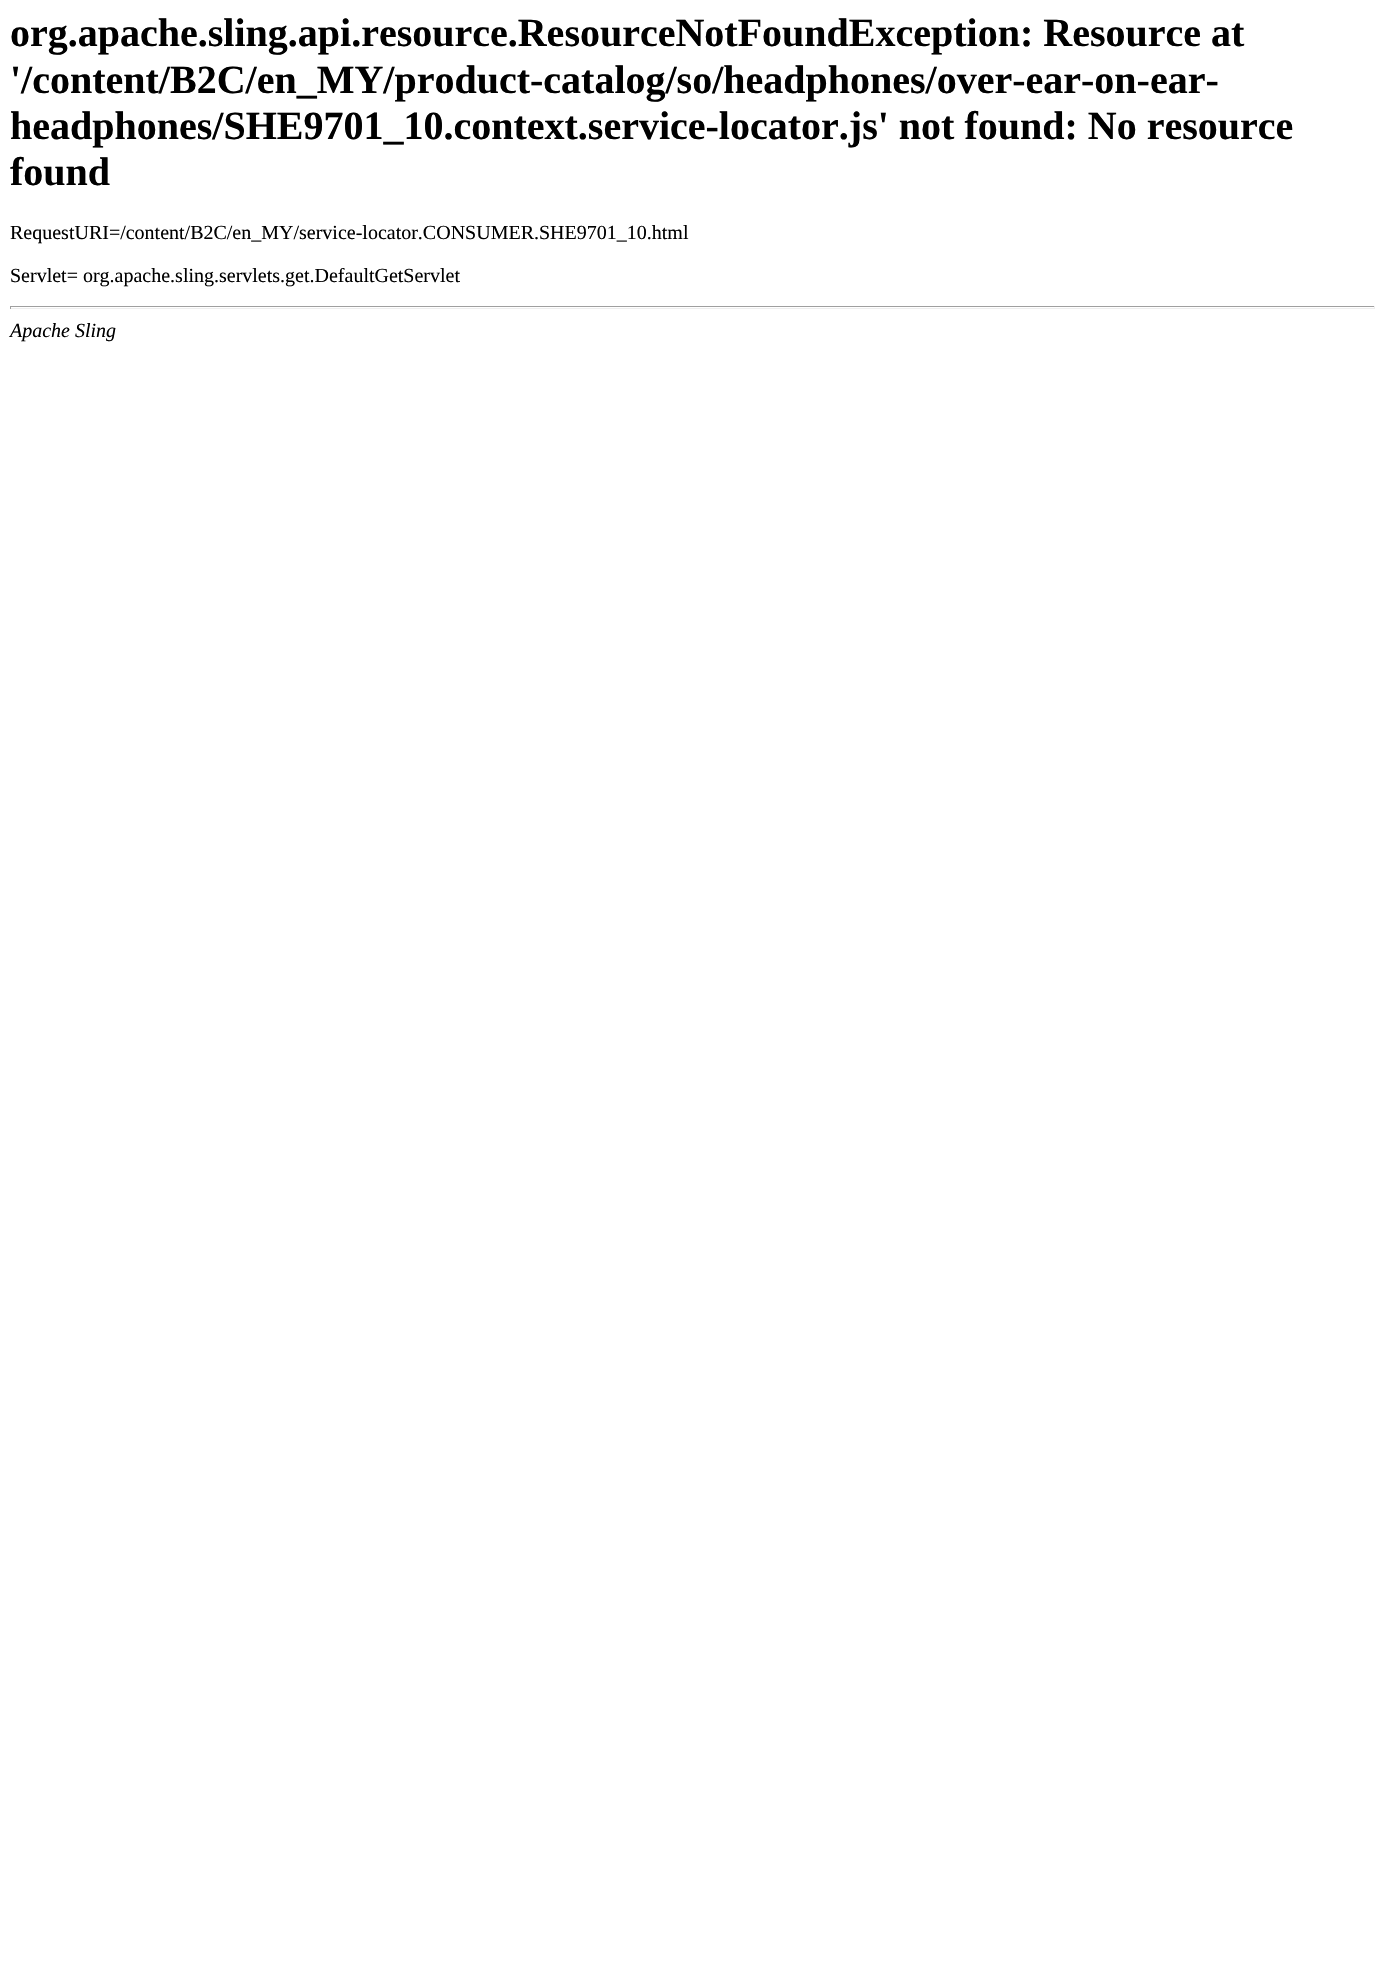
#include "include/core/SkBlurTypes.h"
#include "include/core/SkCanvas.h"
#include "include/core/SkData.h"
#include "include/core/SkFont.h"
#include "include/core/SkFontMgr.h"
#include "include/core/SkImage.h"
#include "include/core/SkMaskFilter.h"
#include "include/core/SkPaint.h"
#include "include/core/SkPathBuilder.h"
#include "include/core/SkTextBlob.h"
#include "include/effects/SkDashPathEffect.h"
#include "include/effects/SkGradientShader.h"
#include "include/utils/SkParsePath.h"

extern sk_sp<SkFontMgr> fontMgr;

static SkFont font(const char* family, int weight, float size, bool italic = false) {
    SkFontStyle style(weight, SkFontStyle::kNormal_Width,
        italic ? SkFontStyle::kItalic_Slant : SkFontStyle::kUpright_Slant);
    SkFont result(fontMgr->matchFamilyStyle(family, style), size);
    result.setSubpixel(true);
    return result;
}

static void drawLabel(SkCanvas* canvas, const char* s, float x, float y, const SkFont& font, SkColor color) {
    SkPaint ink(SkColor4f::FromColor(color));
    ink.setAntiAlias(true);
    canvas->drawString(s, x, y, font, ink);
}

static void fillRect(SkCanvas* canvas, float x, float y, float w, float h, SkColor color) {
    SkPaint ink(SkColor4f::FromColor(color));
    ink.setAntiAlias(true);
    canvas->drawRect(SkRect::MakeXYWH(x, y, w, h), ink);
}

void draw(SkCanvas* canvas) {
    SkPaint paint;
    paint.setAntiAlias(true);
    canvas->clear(0xFFFFFFFF);
    SkFont font1 = font("Liberation Serif", 700, 40);
    drawLabel(canvas, "org.apache.sling.api.resource.ResourceNotFoundException: Resource at", 10, 46, font1, 0xFF000000);
    drawLabel(canvas, "'/content/B2C/en_MY/product-catalog/so/headphones/over-ear-on-ear-", 10, 93, font1, 0xFF000000);
    drawLabel(canvas, "headphones/SHE9701_10.context.service-locator.js' not found: No resource", 10, 139, font1, 0xFF000000);
    drawLabel(canvas, "found", 10, 185, font1, 0xFF000000);
    SkFont font2 = font("Liberation Serif", 400, 20);
    drawLabel(canvas, "RequestURI=/content/B2C/en_MY/service-locator.CONSUMER.SHE9701_10.html", 10, 239, font2, 0xFF000000);
    drawLabel(canvas, "Servlet= org.apache.sling.servlets.get.DefaultGetServlet", 10, 282, font2, 0xFF000000);
    fillRect(canvas, 10, 306, 1365, 1, 0xFF9F9F9F);
    fillRect(canvas, 1374, 306, 1, 3, 0xFFEEEEEE);
    fillRect(canvas, 10, 308, 1365, 1, 0xFFEEEEEE);
    fillRect(canvas, 10, 306, 1, 3, 0xFF9F9F9F);
    SkFont font3 = font("Liberation Serif", 400, 20, true);
    drawLabel(canvas, "Apache Sling", 10, 337, font3, 0xFF000000);
}
